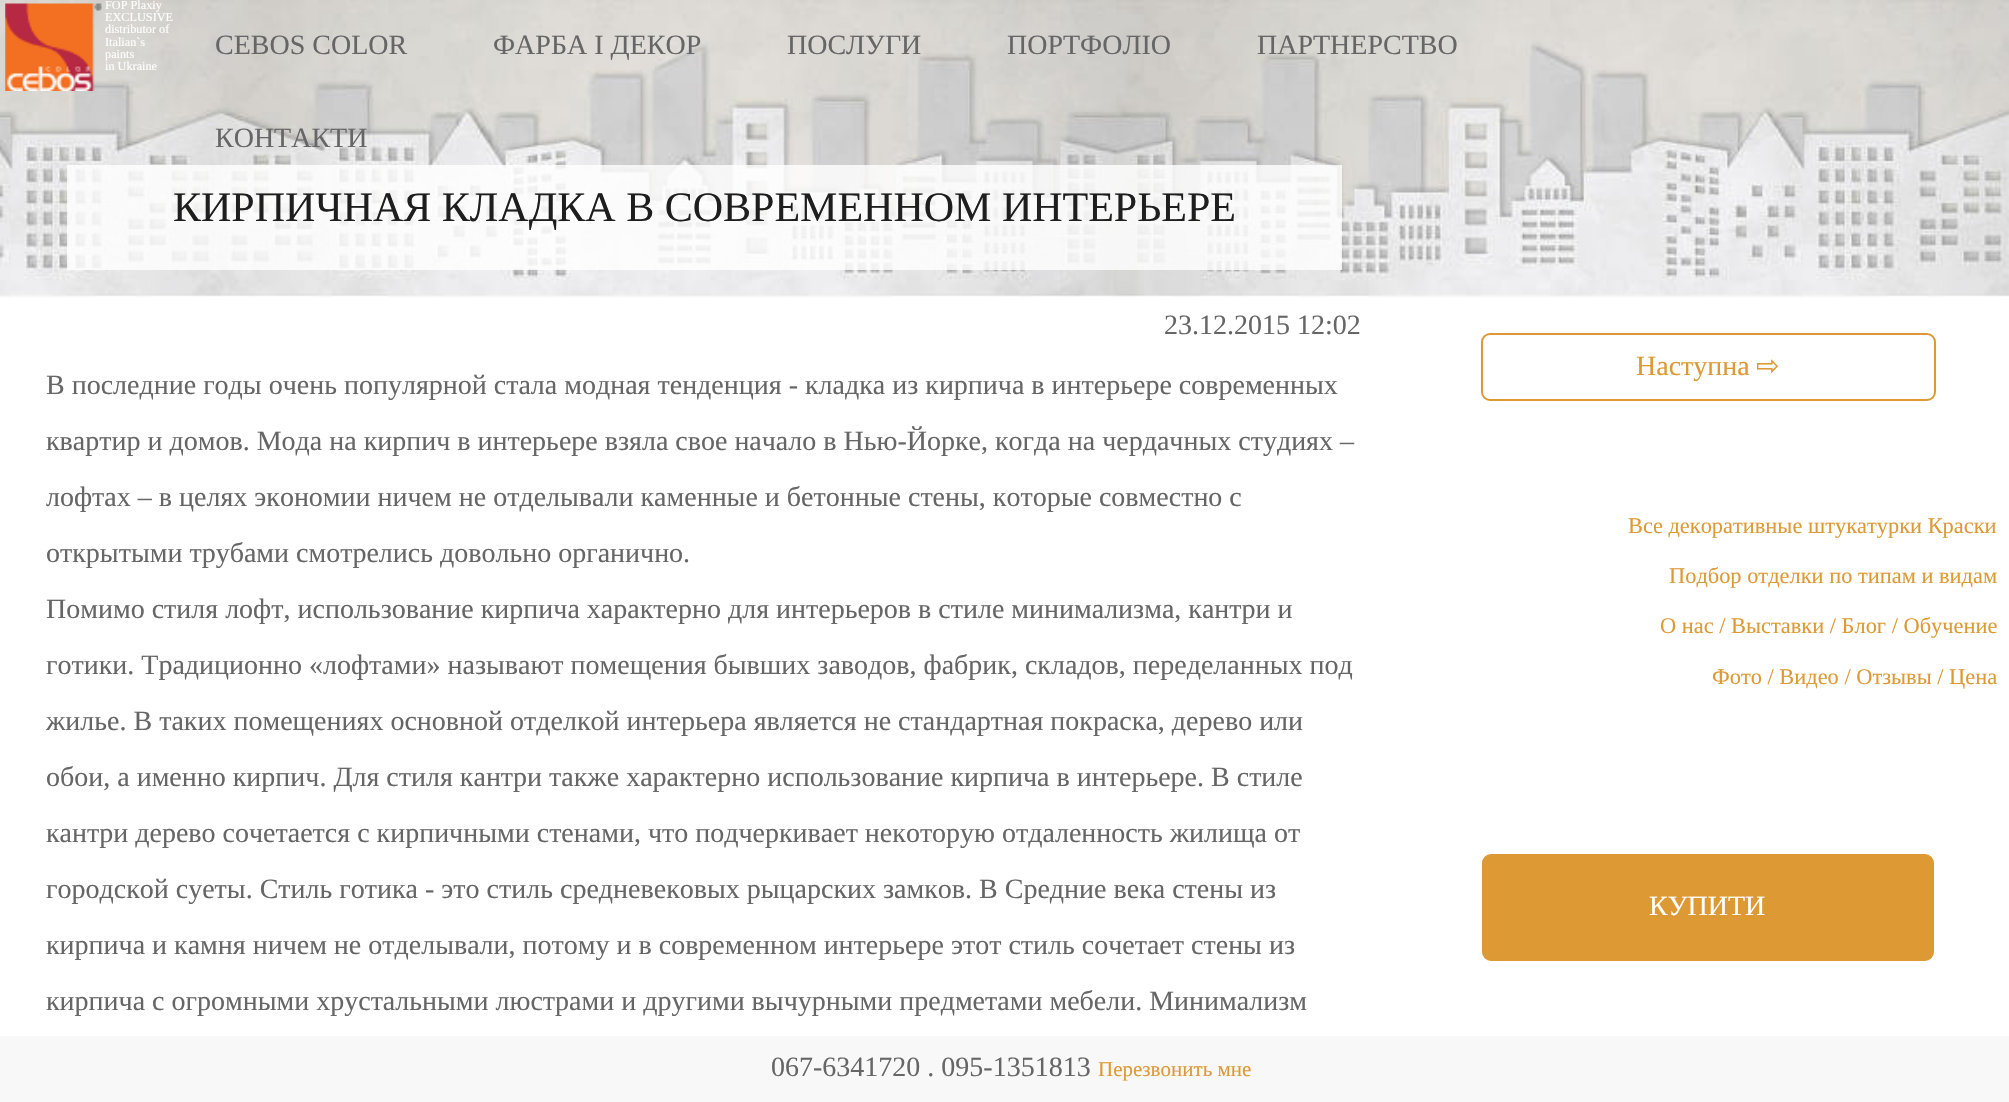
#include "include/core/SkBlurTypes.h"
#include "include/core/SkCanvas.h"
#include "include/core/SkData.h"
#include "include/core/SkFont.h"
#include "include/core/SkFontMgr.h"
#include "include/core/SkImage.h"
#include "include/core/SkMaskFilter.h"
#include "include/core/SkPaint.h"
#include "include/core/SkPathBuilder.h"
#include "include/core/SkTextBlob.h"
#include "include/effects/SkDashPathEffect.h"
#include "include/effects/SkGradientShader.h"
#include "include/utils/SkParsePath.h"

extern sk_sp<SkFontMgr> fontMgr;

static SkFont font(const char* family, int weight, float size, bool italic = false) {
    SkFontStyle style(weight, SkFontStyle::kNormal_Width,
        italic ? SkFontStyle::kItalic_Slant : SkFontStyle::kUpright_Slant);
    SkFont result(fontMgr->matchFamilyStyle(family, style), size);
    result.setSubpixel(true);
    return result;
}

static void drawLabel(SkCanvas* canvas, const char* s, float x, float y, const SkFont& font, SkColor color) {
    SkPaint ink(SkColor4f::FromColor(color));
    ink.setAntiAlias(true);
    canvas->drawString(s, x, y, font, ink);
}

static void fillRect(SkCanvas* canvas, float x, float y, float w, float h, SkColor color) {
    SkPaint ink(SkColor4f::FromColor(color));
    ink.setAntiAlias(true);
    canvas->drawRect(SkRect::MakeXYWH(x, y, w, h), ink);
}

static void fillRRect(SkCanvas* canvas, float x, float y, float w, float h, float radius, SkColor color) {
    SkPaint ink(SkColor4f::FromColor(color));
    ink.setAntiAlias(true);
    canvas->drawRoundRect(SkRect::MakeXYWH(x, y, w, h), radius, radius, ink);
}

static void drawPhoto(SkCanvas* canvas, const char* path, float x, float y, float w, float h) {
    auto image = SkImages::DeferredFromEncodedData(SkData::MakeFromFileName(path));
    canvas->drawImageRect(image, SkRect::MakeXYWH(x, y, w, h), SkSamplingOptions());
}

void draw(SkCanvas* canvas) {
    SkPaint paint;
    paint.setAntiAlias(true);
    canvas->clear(0xFFFFFFFF);
    fillRect(canvas, 0, 1036, 2009, 66, 0xFFF8F8F8);
    drawPhoto(canvas, "assets/img1.png", 0, 0, 2009, 298);
    drawPhoto(canvas, "assets/img2.png", 5, 3, 97, 88);
    SkFont font1 = font("Liberation Serif", 400, 12.25f);
    drawLabel(canvas, "FOP Plaxiy", 105, 9, font1, 0xFFFFFFFF);
    drawLabel(canvas, "EXCLUSIVE", 105, 21, font1, 0xFFFFFFFF);
    drawLabel(canvas, "distributor of", 105, 33, font1, 0xFFFFFFFF);
    drawLabel(canvas, "Italian`s", 105, 46, font1, 0xFFFFFFFF);
    drawLabel(canvas, "paints", 105, 58, font1, 0xFFFFFFFF);
    drawLabel(canvas, "in Ukraine", 105, 70, font1, 0xFFFFFFFF);
    SkFont font2 = font("Liberation Serif", 400, 28);
    drawLabel(canvas, "CEBOS COLOR", 215, 54, font2, 0xFF666667);
    drawLabel(canvas, "ФАРБА І ДЕКОР", 493, 54, font2, 0xFF666667);
    drawLabel(canvas, "ПОСЛУГИ", 787, 54, font2, 0xFF666667);
    drawLabel(canvas, "ПОРТФОЛІО", 1007, 54, font2, 0xFF666667);
    drawLabel(canvas, "ПАРТНЕРСТВО", 1257, 54, font2, 0xFF666667);
    drawLabel(canvas, "КОНТАКТИ", 215, 147, font2, 0xFF666667);
    fillRect(canvas, 67, 165, 1275, 105, 0xCCFFFFFF);
    SkFont font3 = font("Liberation Serif", 400, 42);
    drawLabel(canvas, "КИРПИЧНАЯ КЛАДКА В СОВРЕМЕННОМ ИНТЕРЬЕРЕ", 173, 221, font3, 0xFF1E1E1E);
    drawLabel(canvas, "23.12.2015 12:02", 1164, 334, font2, 0xFF666667);
    drawLabel(canvas, "В последние годы очень популярной стала модная тенденция - кладка из кирпича в интерьере современных", 46, 394, font2, 0xFF666667);
    drawLabel(canvas, "квартир и домов. Мода на кирпич в интерьере взяла свое начало в Нью-Йорке, когда на чердачных студиях –", 46, 450, font2, 0xFF666667);
    drawLabel(canvas, "лофтах – в целях экономии ничем не отделывали каменные и бетонные стены, которые совместно с", 46, 506, font2, 0xFF666667);
    drawLabel(canvas, "открытыми трубами смотрелись довольно органично.", 46, 562, font2, 0xFF666667);
    drawLabel(canvas, "Помимо стиля лофт, использование кирпича характерно для интерьеров в стиле минимализма, кантри и", 46, 618, font2, 0xFF666667);
    drawLabel(canvas, "готики. Традиционно «лофтами» называют помещения бывших заводов, фабрик, складов, переделанных под", 46, 674, font2, 0xFF666667);
    drawLabel(canvas, "жилье. В таких помещениях основной отделкой интерьера является не стандартная покраска, дерево или", 46, 730, font2, 0xFF666667);
    drawLabel(canvas, "обои, а именно кирпич. Для стиля кантри также характерно использование кирпича в интерьере. В стиле", 46, 786, font2, 0xFF666667);
    drawLabel(canvas, "кантри дерево сочетается с кирпичными стенами, что подчеркивает некоторую отдаленность жилища от", 46, 842, font2, 0xFF666667);
    drawLabel(canvas, "городской суеты. Стиль готика - это стиль средневековых рыцарских замков. В Средние века стены из", 46, 898, font2, 0xFF666667);
    drawLabel(canvas, "кирпича и камня ничем не отделывали, потому и в современном интерьере этот стиль сочетает стены из", 46, 954, font2, 0xFF666667);
    drawLabel(canvas, "кирпича с огромными хрустальными люстрами и другими вычурными предметами мебели. Минимализм", 46, 1010, font2, 0xFF666667);
    paint.setStroke(true);
    paint.setStrokeWidth(2);
    paint.setColor(0xFFDD9933);
    canvas->drawRoundRect(SkRect::MakeXYWH(1482, 334, 453, 66), 8, 8, paint);
    drawLabel(canvas, "Наступна", 1636, 375, font2, 0xFFDD9933);
    SkFont font4 = font("DejaVu Sans", 400, 28);
    drawLabel(canvas, "⇨", 1756, 375, font4, 0xFFDD9933);
    SkFont font5 = font("Liberation Serif", 400, 22.4f);
    drawLabel(canvas, "Все декоративные штукатурки Краски", 1628, 533, font5, 0xFFDD9933);
    drawLabel(canvas, "Подбор отделки по типам и видам", 1669, 583, font5, 0xFFDD9933);
    drawLabel(canvas, "О нас / Выставки / Блог / Обучение", 1660, 633, font5, 0xFFDD9933);
    drawLabel(canvas, "Фото / Видео / Отзывы / Цена", 1712, 684, font5, 0xFFDD9933);
    fillRRect(canvas, 1482, 854, 452, 107, 9, 0xFFDD9933);
    drawLabel(canvas, "КУПИТИ", 1649, 915, font2, 0xFFFFFFFF);
    drawLabel(canvas, "067-6341720 . 095-1351813", 771, 1076, font2, 0xFF666667);
    SkFont font6 = font("Liberation Serif", 400, 21);
    drawLabel(canvas, "Перезвонить мне", 1098, 1076, font6, 0xFFDD9933);
}
